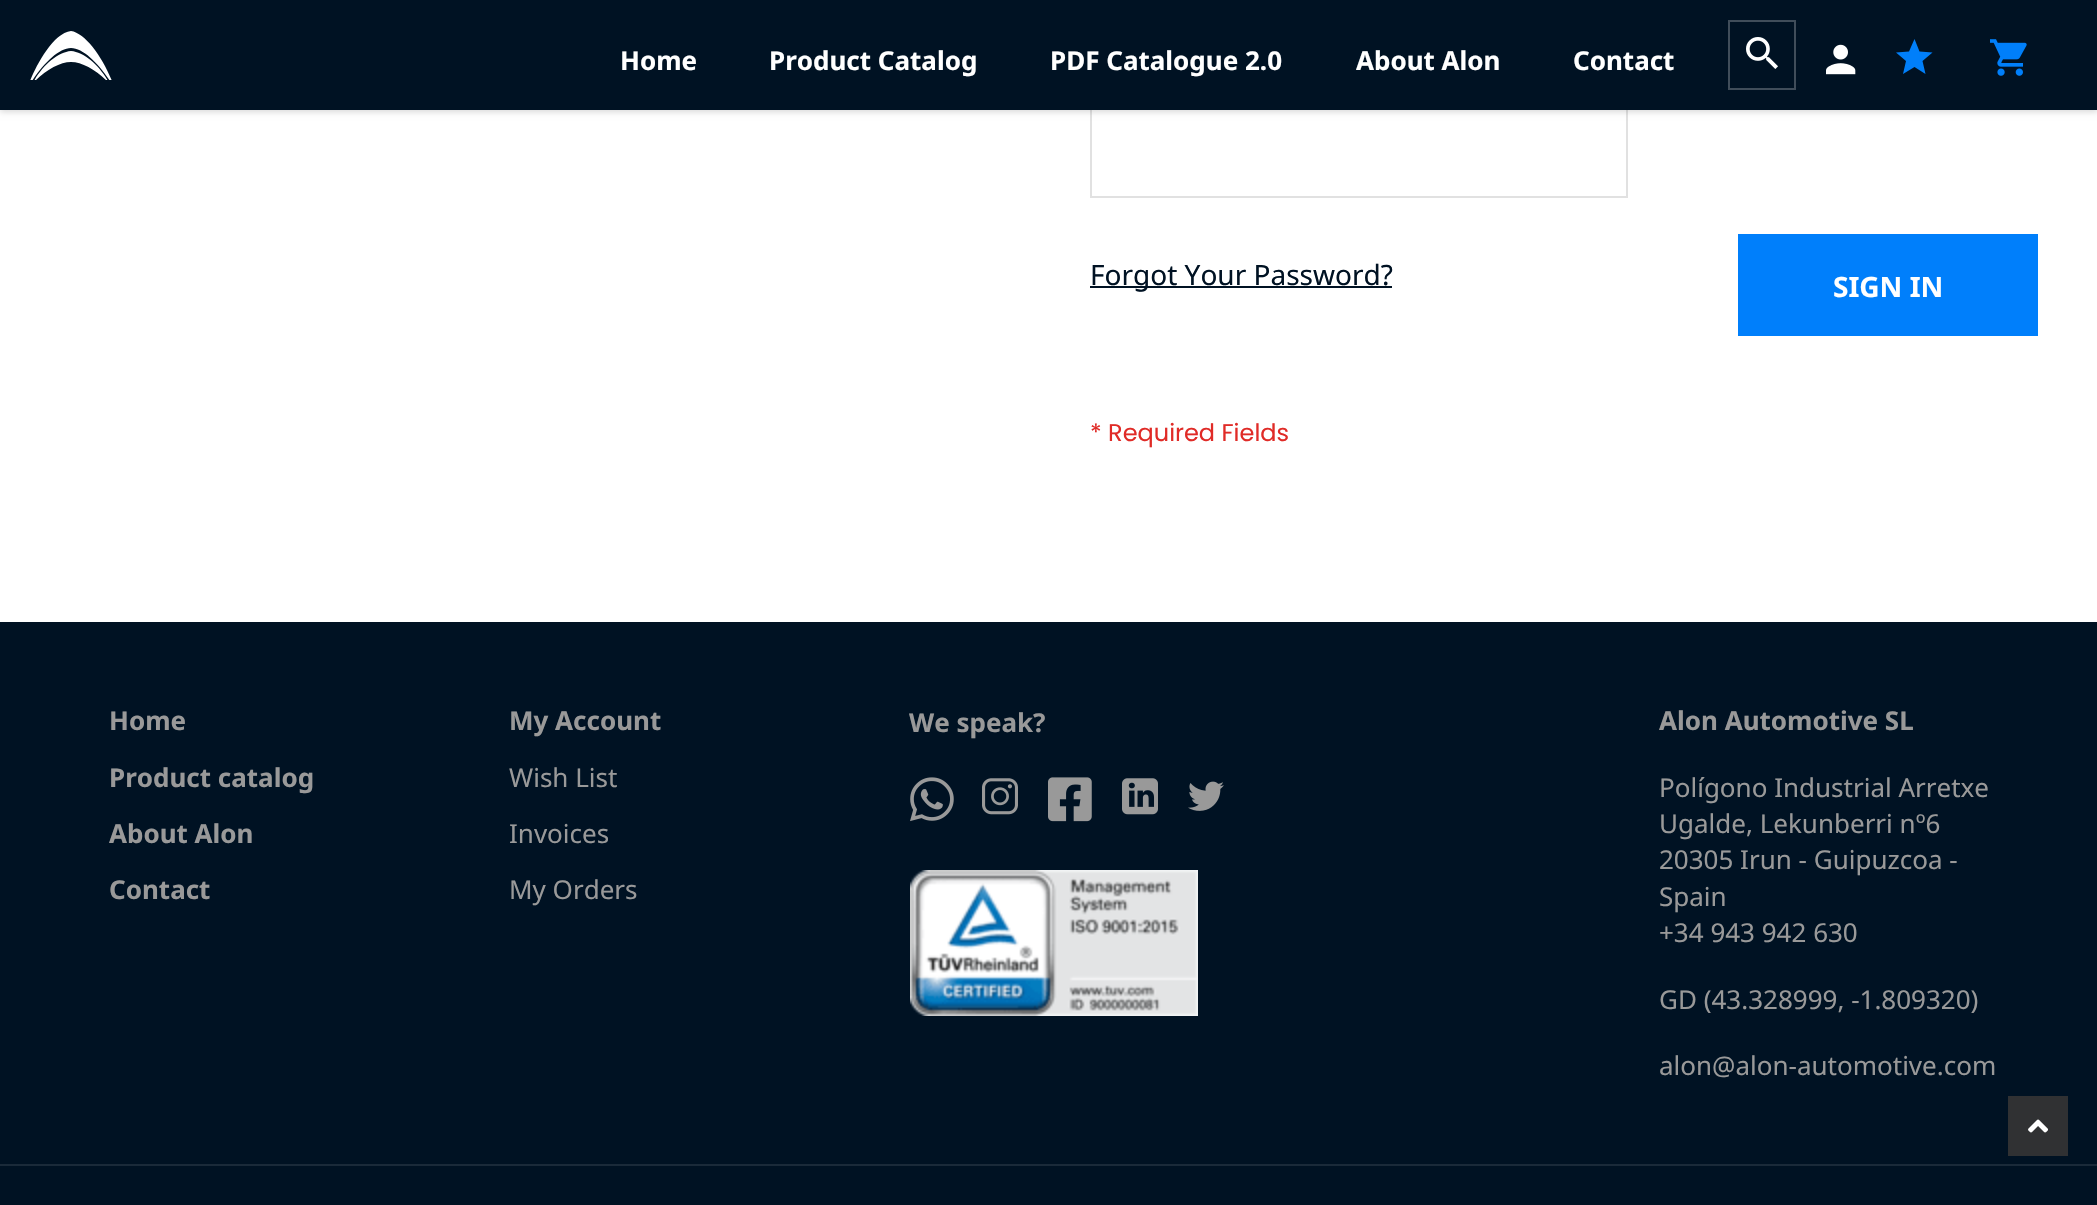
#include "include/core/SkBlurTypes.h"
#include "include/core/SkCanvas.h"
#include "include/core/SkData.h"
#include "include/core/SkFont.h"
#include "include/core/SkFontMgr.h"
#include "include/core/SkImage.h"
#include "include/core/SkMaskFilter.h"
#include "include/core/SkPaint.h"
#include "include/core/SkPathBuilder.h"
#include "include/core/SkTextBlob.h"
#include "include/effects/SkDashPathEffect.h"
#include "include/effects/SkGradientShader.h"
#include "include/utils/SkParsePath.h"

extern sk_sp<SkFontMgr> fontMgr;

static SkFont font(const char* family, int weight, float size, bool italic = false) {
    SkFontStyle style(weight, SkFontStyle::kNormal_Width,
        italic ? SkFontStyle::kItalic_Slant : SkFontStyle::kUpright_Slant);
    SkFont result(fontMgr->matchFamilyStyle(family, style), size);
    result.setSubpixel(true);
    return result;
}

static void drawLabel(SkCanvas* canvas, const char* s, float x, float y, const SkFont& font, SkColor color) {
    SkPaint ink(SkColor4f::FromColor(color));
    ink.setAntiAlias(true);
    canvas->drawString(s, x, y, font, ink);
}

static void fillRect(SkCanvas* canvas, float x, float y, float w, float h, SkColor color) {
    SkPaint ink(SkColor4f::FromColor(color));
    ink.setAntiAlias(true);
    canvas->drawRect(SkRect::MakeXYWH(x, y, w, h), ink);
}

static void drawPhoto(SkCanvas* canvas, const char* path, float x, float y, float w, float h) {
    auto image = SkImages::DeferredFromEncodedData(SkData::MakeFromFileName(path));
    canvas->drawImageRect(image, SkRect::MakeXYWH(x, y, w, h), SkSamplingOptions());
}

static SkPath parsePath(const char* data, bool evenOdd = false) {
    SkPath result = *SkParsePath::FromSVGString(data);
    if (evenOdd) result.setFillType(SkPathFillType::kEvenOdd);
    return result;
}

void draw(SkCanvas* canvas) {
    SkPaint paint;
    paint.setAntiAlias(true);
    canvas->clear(0xFFFFFFFF);
    paint.setStroke(true);
    paint.setStrokeWidth(2);
    paint.setColor(0xFFE1E1E1);
    canvas->drawRect(SkRect::MakeXYWH(1091, 103, 536, 94), paint);
    paint.setStroke(false);
    paint.setColor(0x26000000);
    paint.setMaskFilter(SkMaskFilter::MakeBlur(kNormal_SkBlurStyle, 3));
    canvas->drawRect(SkRect::MakeXYWH(0, 2, 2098, 110), paint);
    paint.setMaskFilter(nullptr);
    fillRect(canvas, 0, 0, 2097, 110, 0xFF001223);
    canvas->save();
    canvas->clipRect(SkRect::MakeXYWH(30, 30, 82, 50));
    paint.setColor(0xFFFFFFFF);
    canvas->drawPath(parsePath("M71 31C85 33 102 56 112 81H110C98 63 83 48 71 48C59 48 44 63 32 81H30C36 66 53 33 71 31ZM71 51ZM71 51ZM34 81C43 65 58 52 71 51C84 52 99 65 108 81H107C96 70 82 62 71 62C60 62 46 70 35 81Z"), paint);
    canvas->restore();
    SkFont font1 = font("Noto Sans", 700, 26);
    drawLabel(canvas, "Home", 620, 70, font1, 0xFFFFFFFF);
    drawLabel(canvas, "Product Catalog", 769, 70, font1, 0xFFFFFFFF);
    drawLabel(canvas, "PDF Catalogue 2.0", 1050, 70, font1, 0xFFFFFFFF);
    drawLabel(canvas, "About Alon", 1356, 70, font1, 0xFFFFFFFF);
    drawLabel(canvas, "Contact", 1573, 70, font1, 0xFFFFFFFF);
    paint.setStroke(true);
    paint.setColor(0xFF404D5A);
    canvas->drawRect(SkRect::MakeXYWH(1729, 21, 66, 68), paint);
    drawPhoto(canvas, "assets/img1.png", 1746, 37, 32, 32);
    drawPhoto(canvas, "assets/img2.png", 1826, 44, 30, 31);
    paint.setStroke(false);
    paint.setColor(0xFF007FFA);
    canvas->drawPath(parsePath("M1914.5 67L1903 74L1906 61L1896 52.5L1909 51.5L1914.5 39L1919.5 51.5L1932.5 52.5L1922.5 61L1925.5 74Z"), paint);
    drawPhoto(canvas, "assets/img3.png", 1990, 39, 37, 37);
    fillRect(canvas, 1090, 286, 302, 2, 0xFF001223);
    SkFont font2 = font("Noto Sans", 400, 28);
    drawLabel(canvas, "Forgot Your Password?", 1090, 285, font2, 0xFF001223);
    fillRect(canvas, 1738, 234, 300, 102, 0xFF007FFB);
    SkFont font3 = font("Noto Sans", 700, 28);
    drawLabel(canvas, "SIGN IN", 1833, 297, font3, 0xFFFFFFFF);
    SkFont font4 = font("Poppins", 400, 24);
    drawLabel(canvas, "* Required Fields", 1090, 441, font4, 0xFFE02B27);
    fillRect(canvas, 0, 622, 2097, 542, 0xFF001223);
    drawLabel(canvas, "Home", 109, 730, font1, 0xFF999999);
    drawLabel(canvas, "Product catalog", 109, 787, font1, 0xFF999999);
    drawLabel(canvas, "About Alon", 109, 843, font1, 0xFF999999);
    drawLabel(canvas, "Contact", 109, 899, font1, 0xFF999999);
    drawLabel(canvas, "My Account", 509, 730, font1, 0xFF999999);
    SkFont font5 = font("Noto Sans", 400, 26);
    drawLabel(canvas, "Wish List", 509, 787, font5, 0xFF999999);
    drawLabel(canvas, "Invoices", 509, 843, font5, 0xFF999999);
    drawLabel(canvas, "My Orders", 509, 899, font5, 0xFF999999);
    drawLabel(canvas, "We speak?", 909, 732, font1, 0xFF999999);
    drawPhoto(canvas, "assets/img4.png", 910, 777, 44, 45);
    drawPhoto(canvas, "assets/img5.png", 982, 778, 36, 37);
    drawPhoto(canvas, "assets/img6.png", 1048, 777, 44, 45);
    drawPhoto(canvas, "assets/img7.png", 1122, 778, 36, 37);
    drawPhoto(canvas, "assets/img8.png", 1188, 781, 36, 30);
    drawPhoto(canvas, "assets/img9.png", 910, 870, 288, 146);
    drawLabel(canvas, "Alon Automotive SL", 1659, 730, font1, 0xFF999999);
    drawLabel(canvas, "Polígono Industrial Arretxe", 1659, 797, font5, 0xFF999999);
    drawLabel(canvas, "Ugalde, Lekunberri nº6", 1659, 833, font5, 0xFF999999);
    drawLabel(canvas, "20305 Irun - Guipuzcoa -", 1659, 869, font5, 0xFF999999);
    drawLabel(canvas, "Spain", 1659, 906, font5, 0xFF999999);
    drawLabel(canvas, "+34 943 942 630", 1659, 942, font5, 0xFF999999);
    drawLabel(canvas, "GD (43.328999, -1.809320)", 1659, 1009, font5, 0xFF999999);
    drawLabel(canvas, "alon@alon-automotive.com", 1659, 1075, font5, 0xFF999999);
    fillRect(canvas, 0, 1166, 2097, 39, 0xFF001223);
    fillRect(canvas, 0, 1164, 2097, 2, 0xFF1A2A39);
    fillRect(canvas, 2008, 1096, 60, 60, 0xFF303133);
    drawPhoto(canvas, "assets/img10.png", 2028, 1119, 20, 14);
}
